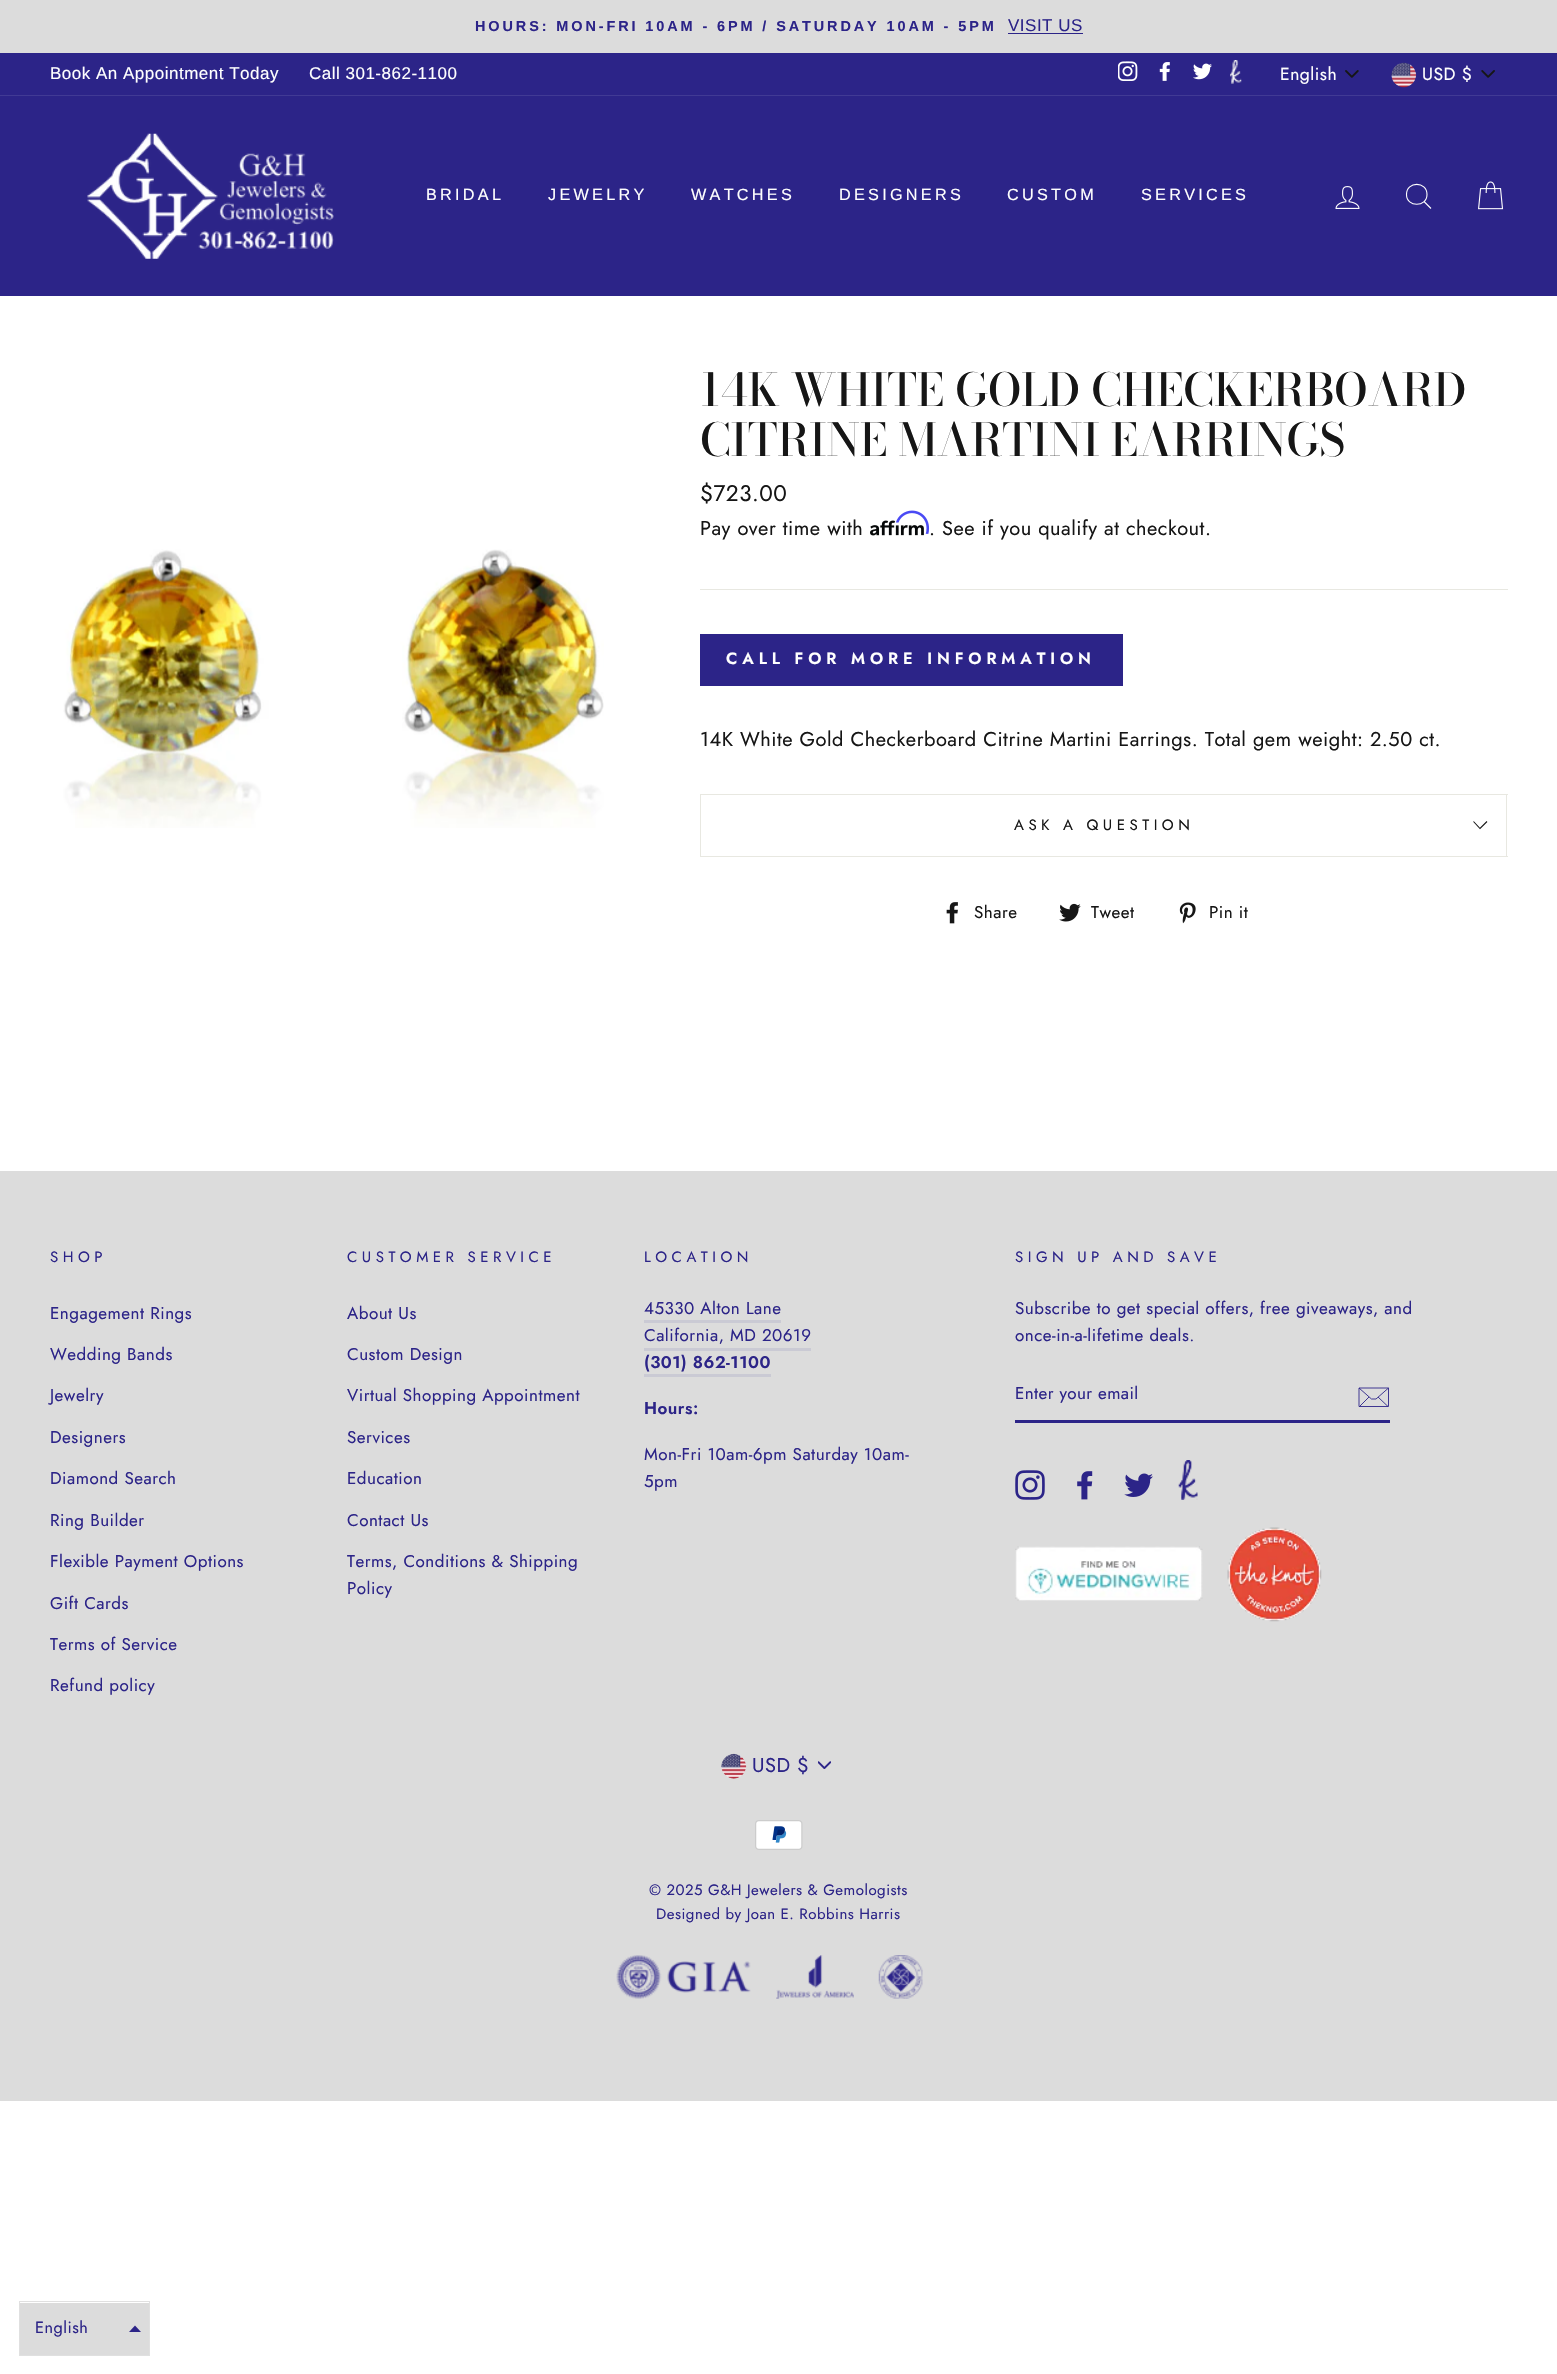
#include "include/core/SkBlurTypes.h"
#include "include/core/SkCanvas.h"
#include "include/core/SkData.h"
#include "include/core/SkFont.h"
#include "include/core/SkFontMgr.h"
#include "include/core/SkImage.h"
#include "include/core/SkMaskFilter.h"
#include "include/core/SkPaint.h"
#include "include/core/SkPathBuilder.h"
#include "include/core/SkTextBlob.h"
#include "include/effects/SkDashPathEffect.h"
#include "include/effects/SkGradientShader.h"
#include "include/utils/SkParsePath.h"

extern sk_sp<SkFontMgr> fontMgr;

static SkFont font(const char* family, int weight, float size, bool italic = false) {
    SkFontStyle style(weight, SkFontStyle::kNormal_Width,
        italic ? SkFontStyle::kItalic_Slant : SkFontStyle::kUpright_Slant);
    SkFont result(fontMgr->matchFamilyStyle(family, style), size);
    result.setSubpixel(true);
    return result;
}

static void drawLabel(SkCanvas* canvas, const char* s, float x, float y, const SkFont& font, SkColor color) {
    SkPaint ink(SkColor4f::FromColor(color));
    ink.setAntiAlias(true);
    canvas->drawString(s, x, y, font, ink);
}

static void drawTracked(SkCanvas* canvas, const char* s, float x, float y, const SkFont& font, const SkPaint& ink, float letter, float word) {
    std::vector<SkGlyphID> glyphs(font.countText(s, strlen(s), SkTextEncoding::kUTF8));
    std::vector<float> xs(glyphs.size());
    font.textToGlyphs(s, strlen(s), SkTextEncoding::kUTF8, glyphs);
    font.getXPos(glyphs, xs, x);
    float extra = 0;
    for (size_t i = 0; i < glyphs.size(); i++) {
        xs[i] += extra;
        extra += letter + word * (glyphs[i] == font.unicharToGlyph(' '));
    }
    canvas->drawTextBlob(SkTextBlob::MakeFromPosHGlyphs(glyphs, xs, y, font), 0, 0, ink);
}

static void fillRect(SkCanvas* canvas, float x, float y, float w, float h, SkColor color) {
    SkPaint ink(SkColor4f::FromColor(color));
    ink.setAntiAlias(true);
    canvas->drawRect(SkRect::MakeXYWH(x, y, w, h), ink);
}

static void drawPhoto(SkCanvas* canvas, const char* path, float x, float y, float w, float h) {
    auto image = SkImages::DeferredFromEncodedData(SkData::MakeFromFileName(path));
    canvas->drawImageRect(image, SkRect::MakeXYWH(x, y, w, h), SkSamplingOptions());
}

static SkPath parsePath(const char* data, bool evenOdd = false) {
    SkPath result = *SkParsePath::FromSVGString(data);
    if (evenOdd) result.setFillType(SkPathFillType::kEvenOdd);
    return result;
}

void draw(SkCanvas* canvas) {
    SkPaint paint;
    paint.setAntiAlias(true);
    canvas->clear(0xFFFFFFFF);
    fillRect(canvas, 0, 0, 1557, 53, 0xFFDCDCDC);
    SkFont font1 = font("Liberation Sans", 700, 14.45f);
    paint.setColor(0xFF2C2488);
    drawTracked(canvas, "HOURS: MON-FRI 10AM - 6PM / SATURDAY 10AM - 5PM", 475, 31, font1, paint, 2.9f, 0);
    SkFont font2 = font("Liberation Sans", 400, 17);
    drawTracked(canvas, "VISIT US", 1008, 31, font2, paint, 0.5f, 0);
    fillRect(canvas, 1008, 33, 75, 1, 0xFF2C2488);
    fillRect(canvas, 0, 53, 1557, 42, 0xFF2C2488);
    paint.setColor(0xFFFFFFFF);
    drawTracked(canvas, "Book An Appointment Today", 50, 79, font2, paint, 0.5f, 0);
    drawTracked(canvas, "Call 301-862-1100", 309, 79, font2, paint, 0.5f, 0);
    drawPhoto(canvas, "assets/img1.png", 1118, 61, 20, 20);
    drawPhoto(canvas, "assets/img2.png", 1159, 62, 11, 19);
    drawPhoto(canvas, "assets/img3.png", 1193, 63, 19, 17);
    drawPhoto(canvas, "assets/img4.png", 1230, 60, 12, 24);
    drawPhoto(canvas, "assets/img5.png", 1345, 70, 14, 8);
    SkFont font3 = font("Jost", 400, 17.5f);
    drawTracked(canvas, "English", 1280, 80, font3, paint, 0.5f, 0);
    drawPhoto(canvas, "assets/img6.png", 1481, 70, 14, 8);
    drawPhoto(canvas, "assets/img7.png", 1391, 62, 26, 26);
    drawTracked(canvas, "USD $", 1422, 80, font3, paint, 0.5f, 0);
    fillRect(canvas, 0, 96, 1557, 200, 0xFF2C2488);
    fillRect(canvas, 0, 95, 1557, 1, 0xFF413A94);
    drawPhoto(canvas, "assets/img8.png", 87, 133, 247, 126);
    SkFont font4 = font("Liberation Sans", 400, 16.25f);
    drawTracked(canvas, "BRIDAL", 426, 200, font4, paint, 3.25f, 0);
    drawTracked(canvas, "JEWELRY", 548, 200, font4, paint, 3.25f, 0);
    drawTracked(canvas, "WATCHES", 691, 200, font4, paint, 3.25f, 0);
    drawTracked(canvas, "DESIGNERS", 839, 200, font4, paint, 3.25f, 0);
    drawTracked(canvas, "CUSTOM", 1007, 200, font4, paint, 3.25f, 0);
    drawTracked(canvas, "SERVICES", 1141, 200, font4, paint, 3.25f, 0);
    drawPhoto(canvas, "assets/img9.png", 1335, 186, 25, 23);
    paint.setStroke(true);
    paint.setStrokeWidth(1.1f);
    canvas->drawPath(parsePath("M1427 194.5C1427 207.5 1406.5 207.5 1406.5 194.5C1406.5 181 1427 181 1427 194.5ZM1431 208.5L1424 201.5"), paint);
    drawPhoto(canvas, "assets/img10.png", 1478, 181, 26, 29);
    drawPhoto(canvas, "assets/img11.png", 63, 549, 541, 279);
    SkFont font5 = font("Bodoni Moda", 500, 45.1f);
    drawLabel(canvas, "14K WHITE GOLD CHECKERBOARD", 700, 406, font5, 0xFF161616);
    drawLabel(canvas, "CITRINE MARTINI EARRINGS", 700, 456, font5, 0xFF161616);
    SkFont font6 = font("Jost", 400, 22.5f);
    paint.setStroke(false);
    paint.setColor(0xFF161616);
    drawTracked(canvas, "$723.00", 700, 501, font6, paint, 0.5f, 0);
    SkFont font7 = font("Jost", 400, 20);
    drawTracked(canvas, "Pay over time with", 700, 535, font7, paint, 0.5f, 0);
    drawPhoto(canvas, "assets/img13.png", 870, 520, 54, 16);
    drawPhoto(canvas, "assets/img12.png", 895, 510, 35, 24);
    drawTracked(canvas, ". See if you qualify at checkout.", 929, 535, font7, paint, 0.5f, 0);
    fillRect(canvas, 700, 589, 808, 1, 0xFFE8E8E1);
    fillRect(canvas, 700, 634, 423, 52, 0xFF2C2488);
    SkFont font8 = font("Jost", 600, 16.25f);
    paint.setColor(0xFFFFFFFF);
    drawTracked(canvas, "CALL FOR MORE INFORMATION", 726, 664, font8, paint, 4.9f, 0);
    paint.setColor(0xFF161616);
    drawTracked(canvas, "14K White Gold Checkerboard Citrine Martini Earrings. Total gem weight: 2.50 ct.", 700, 746, font7, paint, 0.5f, 0);
    fillRect(canvas, 700, 856, 808, 1, 0xFFE8E8E1);
    fillRect(canvas, 700, 794, 808, 1, 0xFFE8E8E1);
    fillRect(canvas, 1506, 794, 1, 62, 0xFFE8E8E1);
    fillRect(canvas, 700, 794, 1, 62, 0xFFE8E8E1);
    SkFont font9 = font("Jost", 400, 15);
    drawTracked(canvas, "ASK A QUESTION", 1014, 830, font9, paint, 4.5f, 0);
    paint.setStroke(true);
    canvas->drawPath(parsePath("M1473.5 821.5L1480 828.5L1487 821.5"), paint);
    drawPhoto(canvas, "assets/img14.png", 946, 902, 12, 22);
    SkFont font10 = font("Jost", 400, 17);
    paint.setStroke(false);
    drawTracked(canvas, "Share", 974, 918, font10, paint, 0.5f, 0);
    drawPhoto(canvas, "assets/img15.png", 1059, 903, 22, 19);
    drawTracked(canvas, "Tweet", 1091, 918, font10, paint, 0.5f, 0);
    drawPhoto(canvas, "assets/img16.png", 1179, 902, 17, 22);
    drawTracked(canvas, "Pin it", 1209, 918, font10, paint, 0.5f, 0);
    fillRect(canvas, 0, 1171, 1557, 930, 0xFFDCDCDC);
    paint.setColor(0xFF2C2488);
    drawTracked(canvas, "SHOP", 50, 1262, font9, paint, 4.5f, 0);
    drawTracked(canvas, "Engagement Rings", 50, 1319, font10, paint, 0.5f, 0);
    drawTracked(canvas, "Wedding Bands", 50, 1360, font10, paint, 0.5f, 0);
    drawTracked(canvas, "Jewelry", 50, 1401, font10, paint, 0.5f, 0);
    drawTracked(canvas, "Designers", 50, 1443, font10, paint, 0.5f, 0);
    drawTracked(canvas, "Diamond Search", 50, 1484, font10, paint, 0.5f, 0);
    drawTracked(canvas, "Ring Builder", 50, 1526, font10, paint, 0.5f, 0);
    drawTracked(canvas, "Flexible Payment Options", 50, 1567, font10, paint, 0.5f, 0);
    drawTracked(canvas, "Gift Cards", 50, 1609, font10, paint, 0.5f, 0);
    drawTracked(canvas, "Terms of Service", 50, 1650, font10, paint, 0.5f, 0);
    drawTracked(canvas, "Refund policy", 50, 1691, font10, paint, 0.5f, 0);
    drawTracked(canvas, "CUSTOMER SERVICE", 347, 1262, font9, paint, 4.5f, 0);
    drawTracked(canvas, "About Us", 347, 1319, font10, paint, 0.5f, 0);
    drawTracked(canvas, "Custom Design", 347, 1360, font10, paint, 0.5f, 0);
    drawTracked(canvas, "Virtual Shopping Appointment", 347, 1401, font10, paint, 0.5f, 0);
    drawTracked(canvas, "Services", 347, 1443, font10, paint, 0.5f, 0);
    drawTracked(canvas, "Education", 347, 1484, font10, paint, 0.5f, 0);
    drawTracked(canvas, "Contact Us", 347, 1526, font10, paint, 0.5f, 0);
    drawTracked(canvas, "Terms, Conditions & Shipping", 347, 1567, font10, paint, 0.5f, 0);
    drawTracked(canvas, "Policy", 347, 1594, font10, paint, 0.5f, 0);
    drawTracked(canvas, "LOCATION", 644, 1262, font9, paint, 4.5f, 0);
    drawTracked(canvas, "45330 Alton Lane", 644, 1314, font10, paint, 0.5f, 0);
    fillRect(canvas, 644, 1320, 137, 3, 0xFFCACAD4);
    drawTracked(canvas, "California, MD 20619", 644, 1341, font10, paint, 0.5f, 0);
    fillRect(canvas, 644, 1348, 167, 3, 0xFFCACAD4);
    SkFont font11 = font("Jost", 600, 17);
    drawTracked(canvas, "(301) 862-1100", 644, 1368, font11, paint, 0.5f, 0);
    fillRect(canvas, 644, 1374, 127, 3, 0xFFCACAD4);
    drawTracked(canvas, "Hours:", 644, 1414, font11, paint, 0.5f, 0);
    drawTracked(canvas, "Mon-Fri 10am-6pm Saturday 10am-", 644, 1460, font10, paint, 0.5f, 0);
    drawTracked(canvas, "5pm", 644, 1487, font10, paint, 0.5f, 0);
    drawTracked(canvas, "SIGN UP AND SAVE", 1015, 1262, font9, paint, 4.5f, 0);
    drawTracked(canvas, "Subscribe to get special offers, free giveaways, and", 1015, 1314, font10, paint, 0.5f, 0);
    drawTracked(canvas, "once-in-a-lifetime deals.", 1015, 1341, font10, paint, 0.5f, 0);
    fillRect(canvas, 1015, 1420, 375, 3, 0xFF2C2488);
    drawTracked(canvas, "Enter your email", 1015, 1399, font10, paint, 0.4f, 0);
    paint.setStroke(true);
    paint.setStrokeWidth(0.9f);
    canvas->drawPath(parsePath("M1388.5 1406.5H1359V1388H1388.5ZM1359 1388L1371.5 1399H1376L1388.5 1388M1369 1397L1359.5 1406.5M1388 1406.5L1378 1397"), paint);
    drawPhoto(canvas, "assets/img17.png", 1015, 1470, 30, 30);
    drawPhoto(canvas, "assets/img18.png", 1077, 1471, 16, 29);
    drawPhoto(canvas, "assets/img19.png", 1124, 1473, 29, 24);
    drawPhoto(canvas, "assets/img20.png", 1178, 1460, 20, 40);
    drawPhoto(canvas, "assets/img21.png", 1015, 1546, 188, 55);
    drawPhoto(canvas, "assets/img22.png", 1227, 1527, 95, 95);
    drawPhoto(canvas, "assets/img23.png", 818, 1761, 13, 8);
    drawPhoto(canvas, "assets/img24.png", 721, 1753, 26, 26);
    paint.setStroke(false);
    drawTracked(canvas, "USD $", 752, 1772, font7, paint, 0.5f, 0);
    drawPhoto(canvas, "assets/img25.png", 755, 1820, 48, 30);
    drawTracked(canvas, "© 2025 G&H Jewelers & Gemologists", 649, 1895, font9, paint, 0.5f, 0);
    drawTracked(canvas, "Designed by Joan E. Robbins Harris", 656, 1919, font9, paint, 0.5f, 0);
    drawPhoto(canvas, "assets/img26.png", 616, 1955, 135, 44);
    drawPhoto(canvas, "assets/img27.png", 776, 1955, 78, 44);
    drawPhoto(canvas, "assets/img28.png", 878, 1955, 45, 44);
    paint.setStroke(true);
    paint.setStrokeWidth(1);
    paint.setColor(0xFFE0E0E0);
    canvas->drawRect(SkRect::MakeXYWH(19.5f, 2301.5f, 130, 54), paint);
    fillRect(canvas, 20, 2303, 129, 52, 0xFFDCDCDC);
    SkFont font12 = font("Jost", 400, 16.25f);
    paint.setStroke(false);
    paint.setColor(0xFF2C2488);
    drawTracked(canvas, "English", 35, 2333, font12, paint, 0.5f, 0);
    canvas->drawPath(parsePath("M129 2332L135 2325.5L141 2332Z", true), paint);
}
